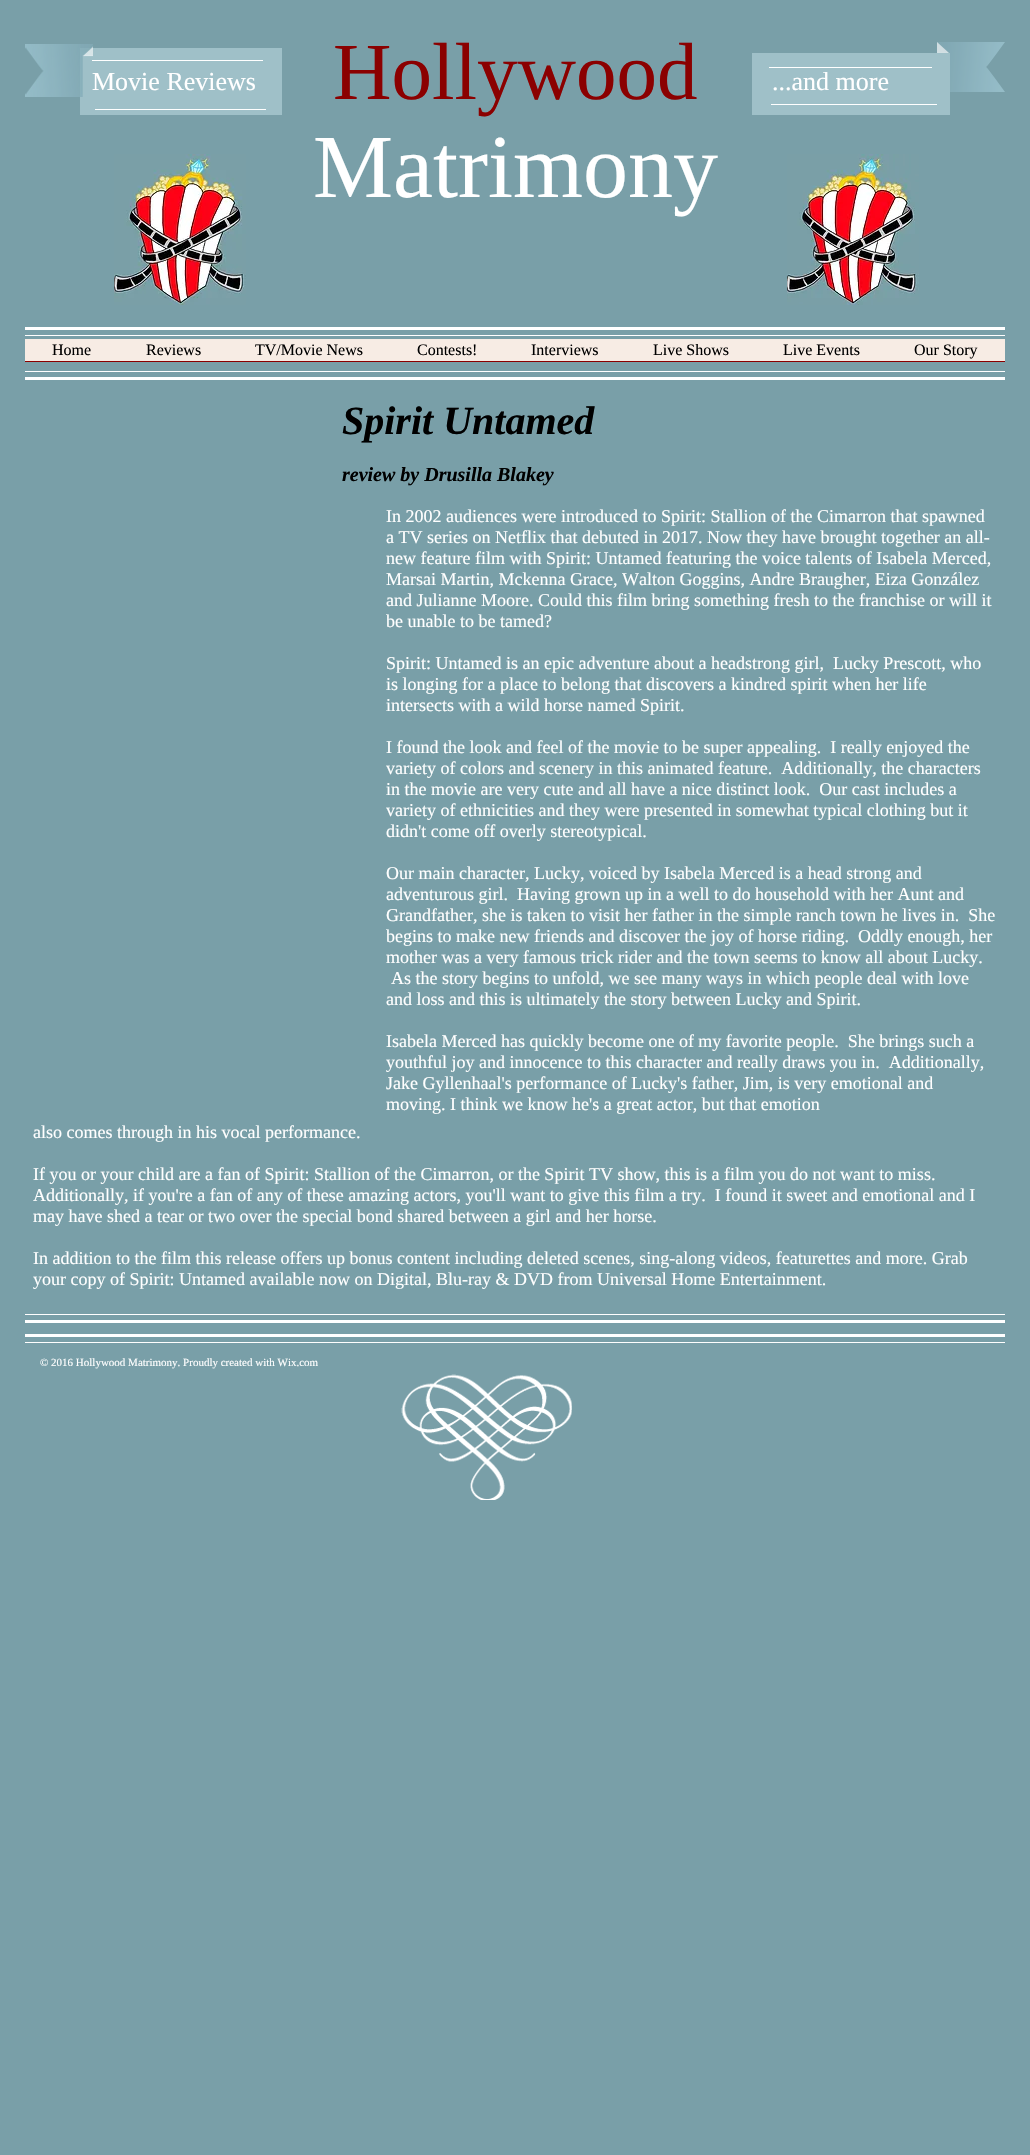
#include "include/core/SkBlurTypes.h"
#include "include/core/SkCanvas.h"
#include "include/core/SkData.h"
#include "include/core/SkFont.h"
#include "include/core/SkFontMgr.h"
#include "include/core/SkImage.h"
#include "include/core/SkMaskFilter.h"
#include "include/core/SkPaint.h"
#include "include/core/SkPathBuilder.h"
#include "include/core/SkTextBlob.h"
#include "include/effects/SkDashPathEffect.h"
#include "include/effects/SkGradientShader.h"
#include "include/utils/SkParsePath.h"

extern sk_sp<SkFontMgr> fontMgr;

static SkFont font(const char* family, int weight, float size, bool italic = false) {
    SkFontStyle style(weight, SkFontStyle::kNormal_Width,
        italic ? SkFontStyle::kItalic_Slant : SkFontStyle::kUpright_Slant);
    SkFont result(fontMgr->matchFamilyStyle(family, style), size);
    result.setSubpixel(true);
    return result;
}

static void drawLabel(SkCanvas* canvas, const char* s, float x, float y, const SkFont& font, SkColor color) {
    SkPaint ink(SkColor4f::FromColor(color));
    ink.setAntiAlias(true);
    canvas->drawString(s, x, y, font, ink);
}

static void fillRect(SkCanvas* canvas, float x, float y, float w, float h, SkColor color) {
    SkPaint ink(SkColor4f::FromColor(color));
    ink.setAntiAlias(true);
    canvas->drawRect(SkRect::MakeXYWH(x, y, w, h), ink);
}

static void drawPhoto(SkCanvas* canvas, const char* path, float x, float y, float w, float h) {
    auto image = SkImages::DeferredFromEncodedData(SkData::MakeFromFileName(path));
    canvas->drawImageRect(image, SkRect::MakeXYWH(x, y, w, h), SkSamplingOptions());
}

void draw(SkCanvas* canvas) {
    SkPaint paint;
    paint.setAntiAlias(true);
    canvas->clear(0xFF799FA8);
    fillRect(canvas, 80, 48, 202, 67, 0xFF9FC0C8);
    fillRect(canvas, 92, 60, 171, 1, 0xFFFFFFFF);
    SkFont font1 = font("Liberation Serif", 400, 26);
    drawLabel(canvas, "Movie Reviews", 92, 90, font1, 0xFFFFFFFF);
    drawPhoto(canvas, "assets/img1.png", 25, 44, 68, 53);
    fillRect(canvas, 95, 109, 171, 1, 0xFFFFFFFF);
    SkFont font2 = font("Liberation Serif", 400, 81);
    drawLabel(canvas, "Hollywood", 333, 99, font2, 0xFF8B0000);
    SkFont font3 = font("Liberation Serif", 400, 90);
    drawLabel(canvas, "Matrimony", 313, 197, font3, 0xFFFFFFFF);
    drawPhoto(canvas, "assets/img2.png", 937, 42, 68, 50);
    fillRect(canvas, 752, 53, 198, 62, 0xFF9FC0C8);
    fillRect(canvas, 769, 67, 163, 1, 0xFFFFFFFF);
    drawLabel(canvas, "...and more", 772, 90, font1, 0xFFFFFFFF);
    fillRect(canvas, 771, 104, 166, 1, 0xFFFFFFFF);
    drawPhoto(canvas, "assets/img3.png", 114, 154, 132, 151);
    drawPhoto(canvas, "assets/img4.png", 787, 154, 132, 151);
    fillRect(canvas, 25, 327, 980, 3, 0xFFFFFFFF);
    fillRect(canvas, 25, 335, 980, 1, 0xFFFFFFFF);
    fillRect(canvas, 25, 339, 980, 22, 0xFFF7ECE4);
    fillRect(canvas, 25, 361, 980, 1, 0xFF8B0000);
    SkFont font4 = font("Liberation Serif", 400, 16);
    drawLabel(canvas, "Home", 52, 355, font4, 0xFF000000);
    drawLabel(canvas, "Reviews", 146, 355, font4, 0xFF000000);
    drawLabel(canvas, "TV/Movie News", 255, 355, font4, 0xFF000000);
    drawLabel(canvas, "Contests!", 417, 355, font4, 0xFF000000);
    drawLabel(canvas, "Interviews", 531, 355, font4, 0xFF000000);
    drawLabel(canvas, "Live Shows", 653, 355, font4, 0xFF000000);
    drawLabel(canvas, "Live Events", 783, 355, font4, 0xFF000000);
    drawLabel(canvas, "Our Story", 914, 355, font4, 0xFF000000);
    fillRect(canvas, 25, 371, 980, 1, 0xFFFFFFFF);
    fillRect(canvas, 25, 377, 980, 3, 0xFFFFFFFF);
    SkFont font5 = font("Liberation Serif", 700, 40, true);
    drawLabel(canvas, "Spirit Untamed", 342, 434, font5, 0xFF000000);
    SkFont font6 = font("Liberation Serif", 700, 20, true);
    drawLabel(canvas, "review by Drusilla Blakey", 342, 481, font6, 0xFF000000);
    SkFont font7 = font("Liberation Serif", 400, 18);
    drawLabel(canvas, "In 2002 audiences were introduced to Spirit: Stallion of the Cimarron that spawned", 386, 522, font7, 0xFFFFFFFF);
    drawLabel(canvas, "a TV series on Netflix that debuted in 2017. Now they have brought together an all-", 386, 543, font7, 0xFFFFFFFF);
    drawLabel(canvas, "new feature film with Spirit: Untamed featuring the voice talents of Isabela Merced,", 386, 564, font7, 0xFFFFFFFF);
    drawLabel(canvas, "Marsai Martin, Mckenna Grace, Walton Goggins, Andre Braugher, Eiza González", 386, 585, font7, 0xFFFFFFFF);
    drawLabel(canvas, "and Julianne Moore. Could this film bring something fresh to the franchise or will it", 386, 606, font7, 0xFFFFFFFF);
    drawLabel(canvas, "be unable to be tamed?", 386, 627, font7, 0xFFFFFFFF);
    drawLabel(canvas, "Spirit: Untamed is an epic adventure about a headstrong girl,  Lucky Prescott, who", 386, 669, font7, 0xFFFFFFFF);
    drawLabel(canvas, "is longing for a place to belong that discovers a kindred spirit when her life", 386, 690, font7, 0xFFFFFFFF);
    drawLabel(canvas, "intersects with a wild horse named Spirit.", 386, 711, font7, 0xFFFFFFFF);
    drawLabel(canvas, "I found the look and feel of the movie to be super appealing.  I really enjoyed the", 386, 753, font7, 0xFFFFFFFF);
    drawLabel(canvas, "variety of colors and scenery in this animated feature.  Additionally, the characters", 386, 774, font7, 0xFFFFFFFF);
    drawLabel(canvas, "in the movie are very cute and all have a nice distinct look.  Our cast includes a", 386, 795, font7, 0xFFFFFFFF);
    drawLabel(canvas, "variety of ethnicities and they were presented in somewhat typical clothing but it", 386, 816, font7, 0xFFFFFFFF);
    drawLabel(canvas, "didn't come off overly stereotypical.", 386, 837, font7, 0xFFFFFFFF);
    drawLabel(canvas, "Our main character, Lucky, voiced by Isabela Merced is a head strong and", 386, 879, font7, 0xFFFFFFFF);
    drawLabel(canvas, "adventurous girl.  Having grown up in a well to do household with her Aunt and", 386, 900, font7, 0xFFFFFFFF);
    drawLabel(canvas, "Grandfather, she is taken to visit her father in the simple ranch town he lives in.  She", 386, 921, font7, 0xFFFFFFFF);
    drawLabel(canvas, "begins to make new friends and discover the joy of horse riding.  Oddly enough, her", 386, 942, font7, 0xFFFFFFFF);
    drawLabel(canvas, "mother was a very famous trick rider and the town seems to know all about Lucky.", 386, 963, font7, 0xFFFFFFFF);
    drawLabel(canvas, "As the story begins to unfold, we see many ways in which people deal with love", 391, 984, font7, 0xFFFFFFFF);
    drawLabel(canvas, "and loss and this is ultimately the story between Lucky and Spirit.", 386, 1005, font7, 0xFFFFFFFF);
    drawLabel(canvas, "Isabela Merced has quickly become one of my favorite people.  She brings such a", 386, 1047, font7, 0xFFFFFFFF);
    drawLabel(canvas, "youthful joy and innocence to this character and really draws you in.  Additionally,", 386, 1068, font7, 0xFFFFFFFF);
    drawLabel(canvas, "Jake Gyllenhaal's performance of Lucky's father, Jim, is very emotional and", 386, 1089, font7, 0xFFFFFFFF);
    drawLabel(canvas, "moving. I think we know he's a great actor, but that emotion", 386, 1110, font7, 0xFFFFFFFF);
    drawLabel(canvas, "also comes through in his vocal performance.", 33, 1138, font7, 0xFFFFFFFF);
    drawLabel(canvas, "If you or your child are a fan of Spirit: Stallion of the Cimarron, or the Spirit TV show, this is a film you do not want to miss.", 33, 1180, font7, 0xFFFFFFFF);
    drawLabel(canvas, "Additionally, if you're a fan of any of these amazing actors, you'll want to give this film a try.  I found it sweet and emotional and I", 33, 1201, font7, 0xFFFFFFFF);
    drawLabel(canvas, "may have shed a tear or two over the special bond shared between a girl and her horse.", 33, 1222, font7, 0xFFFFFFFF);
    drawLabel(canvas, "In addition to the film this release offers up bonus content including deleted scenes, sing-along videos, featurettes and more. Grab", 33, 1264, font7, 0xFFFFFFFF);
    drawLabel(canvas, "your copy of Spirit: Untamed available now on Digital, Blu-ray & DVD from Universal Home Entertainment.", 33, 1285, font7, 0xFFFFFFFF);
    fillRect(canvas, 25, 1314, 980, 1, 0xFFFFFFFF);
    fillRect(canvas, 25, 1320, 980, 3, 0xFFFFFFFF);
    fillRect(canvas, 25, 1334, 980, 3, 0xFFFFFFFF);
    fillRect(canvas, 25, 1342, 980, 1, 0xFFFFFFFF);
    SkFont font8 = font("Liberation Serif", 400, 11);
    drawLabel(canvas, "© 2016 Hollywood Matrimony. Proudly created with Wix.com", 40, 1366, font8, 0xFFFFFFFF);
    drawPhoto(canvas, "assets/img5.png", 401, 1374, 171, 126);
}
